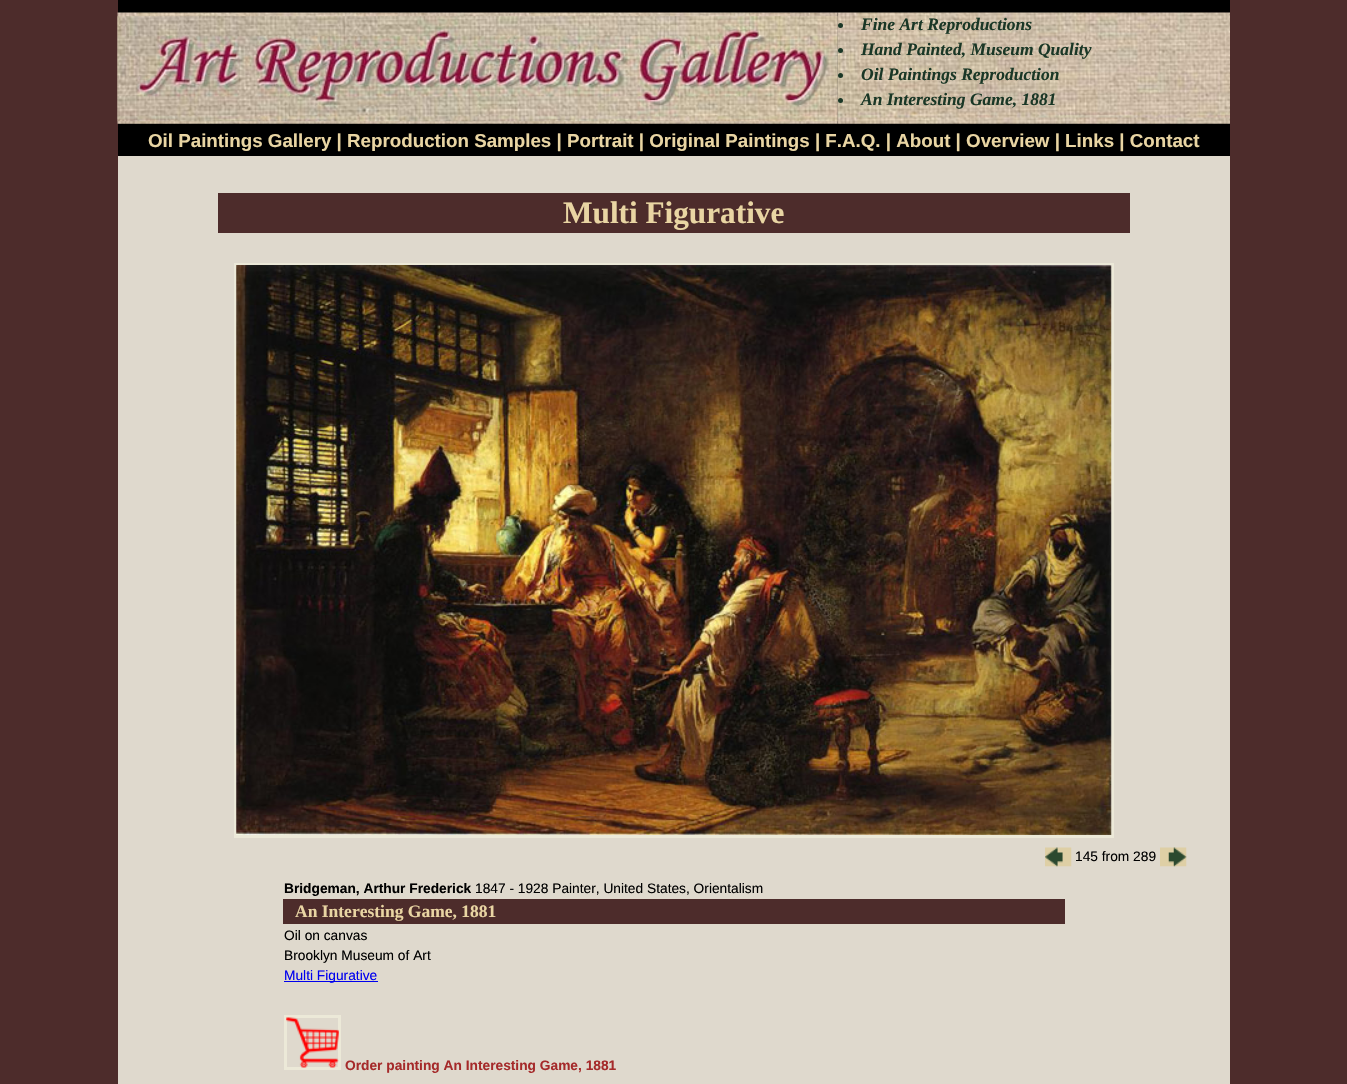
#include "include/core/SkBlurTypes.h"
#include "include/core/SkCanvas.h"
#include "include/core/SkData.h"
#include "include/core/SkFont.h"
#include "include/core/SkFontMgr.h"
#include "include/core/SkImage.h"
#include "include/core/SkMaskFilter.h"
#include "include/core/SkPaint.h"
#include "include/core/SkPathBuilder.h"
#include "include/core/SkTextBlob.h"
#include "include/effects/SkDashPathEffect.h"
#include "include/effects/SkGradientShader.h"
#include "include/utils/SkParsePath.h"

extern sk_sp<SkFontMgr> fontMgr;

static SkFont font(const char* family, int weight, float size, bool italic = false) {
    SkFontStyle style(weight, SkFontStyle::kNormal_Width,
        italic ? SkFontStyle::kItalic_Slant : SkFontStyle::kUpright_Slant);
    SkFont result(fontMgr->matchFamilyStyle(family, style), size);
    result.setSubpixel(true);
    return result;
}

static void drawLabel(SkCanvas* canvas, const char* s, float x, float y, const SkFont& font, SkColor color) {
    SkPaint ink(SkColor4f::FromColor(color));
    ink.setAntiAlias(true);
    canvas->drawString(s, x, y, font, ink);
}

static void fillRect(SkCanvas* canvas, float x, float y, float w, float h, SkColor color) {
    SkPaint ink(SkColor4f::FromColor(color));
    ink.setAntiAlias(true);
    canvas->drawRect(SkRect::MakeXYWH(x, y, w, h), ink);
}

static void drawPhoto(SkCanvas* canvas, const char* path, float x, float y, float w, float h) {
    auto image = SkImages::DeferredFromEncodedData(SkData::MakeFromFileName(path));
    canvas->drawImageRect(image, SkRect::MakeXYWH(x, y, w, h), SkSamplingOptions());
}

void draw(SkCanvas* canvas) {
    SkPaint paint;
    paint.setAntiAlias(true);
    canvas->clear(0xFF4D2C2B);
    fillRect(canvas, 118, 0, 1112, 156, 0xFF000000);
    drawPhoto(canvas, "assets/img1.png", 117, 12, 721, 112);
    drawPhoto(canvas, "assets/img3.png", 837, 12, 393, 112);
    drawPhoto(canvas, "assets/img2.png", 117, 16, 721, 106);
    paint.setColor(0xFF1A3726);
    canvas->drawCircle(840.5f, 25.5f, 2.5f, paint);
    SkFont font1 = font("Liberation Serif", 700, 17.5f, true);
    drawLabel(canvas, "Fine Art Reproductions", 861, 30, font1, 0xFF1A3726);
    canvas->drawCircle(840.5f, 50.5f, 2.5f, paint);
    drawLabel(canvas, "Hand Painted, Museum Quality", 861, 55, font1, 0xFF1A3726);
    canvas->drawCircle(840.5f, 75.5f, 2.5f, paint);
    drawLabel(canvas, "Oil Paintings Reproduction", 861, 80, font1, 0xFF1A3726);
    canvas->drawCircle(840.5f, 100.5f, 2.5f, paint);
    drawLabel(canvas, "An Interesting Game, 1881", 861, 105, font1, 0xFF1A3726);
    SkFont font2 = font("Liberation Sans", 700, 18.75f);
    drawLabel(canvas, "Oil Paintings Gallery | Reproduction Samples | Portrait | Original Paintings | F.A.Q. | About | Overview | Links | Contact", 148, 147, font2, 0xFFE9D5A3);
    fillRect(canvas, 118, 156, 1112, 928, 0xFFDFD9CD);
    fillRect(canvas, 218, 193, 912, 40, 0xFF4D2C2B);
    SkFont font3 = font("Liberation Serif", 700, 31.25f);
    drawLabel(canvas, "Multi Figurative", 563, 223, font3, 0xFFE9D5A3);
    paint.setStroke(true);
    paint.setStrokeWidth(3);
    paint.setColor(0xFFECE9D8);
    canvas->drawRect(SkRect::MakeXYWH(235.5f, 264.5f, 877, 572), paint);
    drawPhoto(canvas, "assets/img4.png", 236, 265, 876, 570);
    drawPhoto(canvas, "assets/img5.png", 1045, 847, 27, 20);
    SkFont font4 = font("Liberation Sans", 400, 13.75f);
    drawLabel(canvas, "145 from 289", 1075, 861, font4, 0xFF000000);
    drawPhoto(canvas, "assets/img6.png", 1160, 847, 27, 20);
    SkFont font5 = font("Liberation Sans", 700, 13.75f);
    drawLabel(canvas, "Bridgeman, Arthur Frederick", 284, 893, font5, 0xFF000000);
    drawLabel(canvas, "1847 - 1928 Painter, United States, Orientalism", 475, 893, font4, 0xFF000000);
    fillRect(canvas, 283, 899, 782, 25, 0xFF4D2C2B);
    SkFont font6 = font("Liberation Serif", 700, 17.5f);
    drawLabel(canvas, "An Interesting Game, 1881", 295, 917, font6, 0xFFE9D5A3);
    drawLabel(canvas, "Oil on canvas", 284, 940, font4, 0xFF000000);
    drawLabel(canvas, "Brooklyn Museum of Art", 284, 960, font4, 0xFF000000);
    fillRect(canvas, 284, 981, 94, 1, 0xFF0000EE);
    drawLabel(canvas, "Multi Figurative", 284, 980, font4, 0xFF0000EE);
    canvas->drawRect(SkRect::MakeXYWH(285.5f, 1016.5f, 54, 52), paint);
    drawPhoto(canvas, "assets/img7.png", 286, 1017, 53, 51);
    drawLabel(canvas, "Order painting An Interesting Game, 1881", 345, 1070, font5, 0xFFA52A2A);
}
